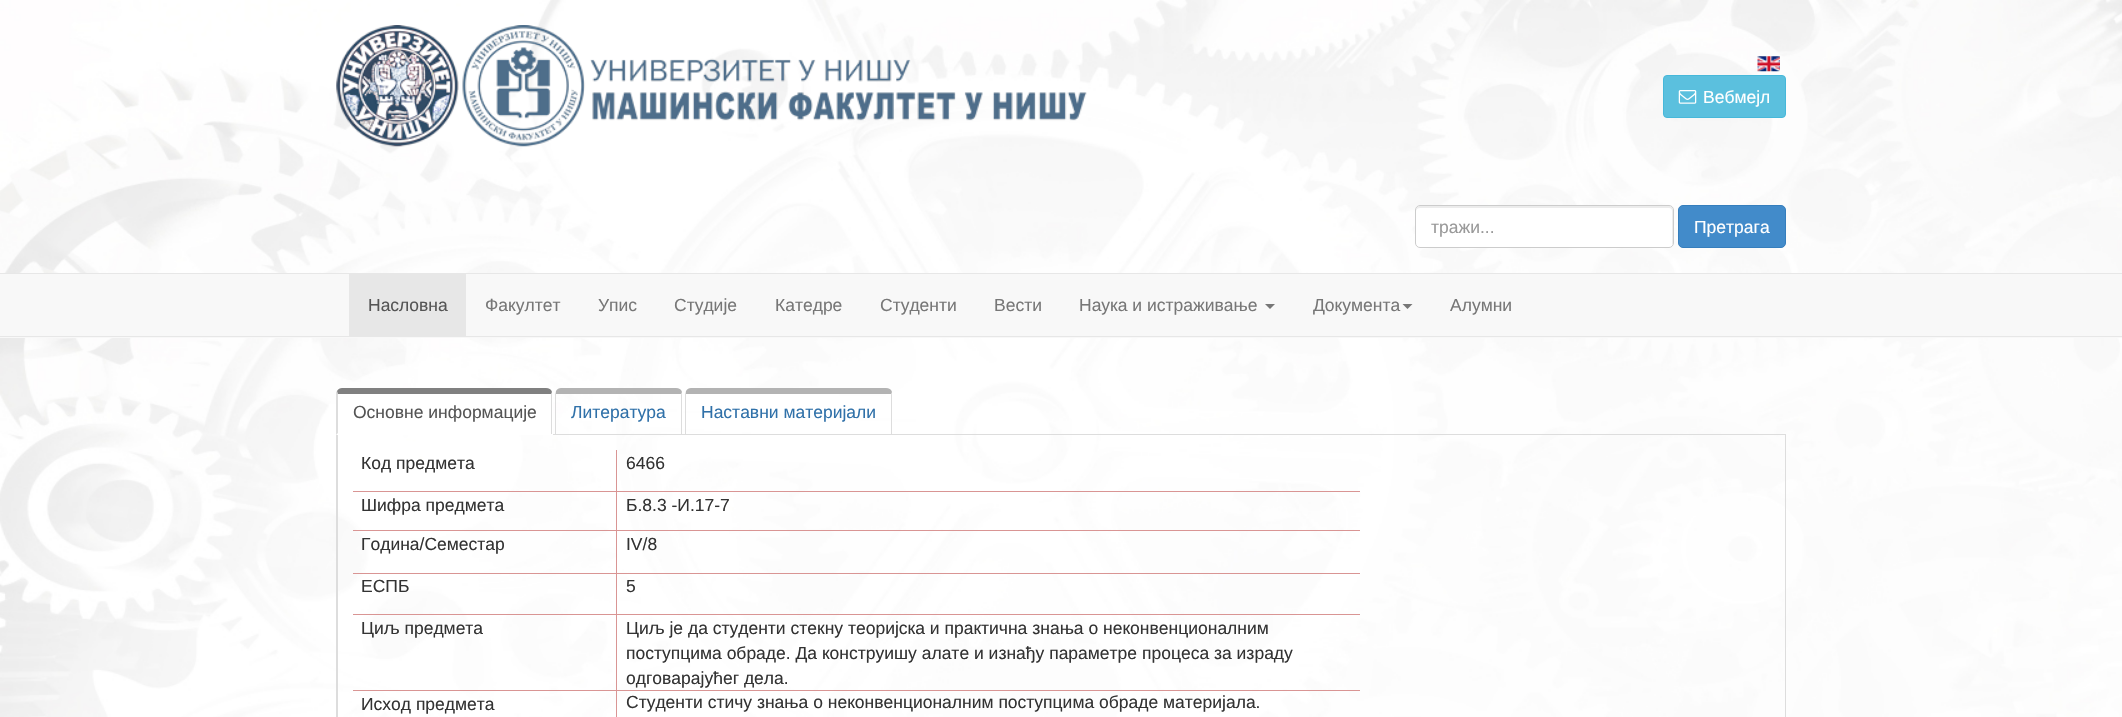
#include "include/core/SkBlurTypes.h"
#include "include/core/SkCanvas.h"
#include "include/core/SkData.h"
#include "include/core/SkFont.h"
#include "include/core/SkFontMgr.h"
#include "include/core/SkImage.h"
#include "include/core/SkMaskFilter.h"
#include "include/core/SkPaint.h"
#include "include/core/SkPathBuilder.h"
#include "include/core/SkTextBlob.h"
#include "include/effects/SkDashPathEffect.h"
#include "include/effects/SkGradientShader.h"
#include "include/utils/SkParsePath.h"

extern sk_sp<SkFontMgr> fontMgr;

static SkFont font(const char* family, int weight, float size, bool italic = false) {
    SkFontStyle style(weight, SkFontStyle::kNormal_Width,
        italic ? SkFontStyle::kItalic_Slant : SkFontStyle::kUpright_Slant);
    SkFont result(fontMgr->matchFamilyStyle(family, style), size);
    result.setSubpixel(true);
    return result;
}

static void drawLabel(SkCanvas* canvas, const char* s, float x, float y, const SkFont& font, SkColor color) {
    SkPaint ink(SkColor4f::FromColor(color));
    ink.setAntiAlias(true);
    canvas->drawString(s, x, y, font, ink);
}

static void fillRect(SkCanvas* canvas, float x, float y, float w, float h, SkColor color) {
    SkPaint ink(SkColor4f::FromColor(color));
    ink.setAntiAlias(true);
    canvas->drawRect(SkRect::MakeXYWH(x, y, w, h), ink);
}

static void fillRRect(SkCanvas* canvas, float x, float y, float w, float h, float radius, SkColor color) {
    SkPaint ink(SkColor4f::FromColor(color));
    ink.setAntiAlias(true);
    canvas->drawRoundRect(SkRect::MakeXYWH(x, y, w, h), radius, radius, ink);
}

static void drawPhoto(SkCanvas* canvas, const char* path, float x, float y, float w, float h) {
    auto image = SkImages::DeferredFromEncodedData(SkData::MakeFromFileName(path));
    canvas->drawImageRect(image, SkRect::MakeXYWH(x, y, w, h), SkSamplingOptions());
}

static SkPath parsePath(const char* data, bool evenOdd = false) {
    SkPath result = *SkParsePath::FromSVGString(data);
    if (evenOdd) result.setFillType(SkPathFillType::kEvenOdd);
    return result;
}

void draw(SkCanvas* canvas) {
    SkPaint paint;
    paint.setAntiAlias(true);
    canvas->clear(0xFFFFFFFF);
    drawPhoto(canvas, "assets/img1.png", 0, 0, 2122, 717);
    drawPhoto(canvas, "assets/img2.png", 336, 25, 751, 122);
    drawPhoto(canvas, "assets/img3.png", 1757, 56, 23, 16);
    paint.setColor(0xFF5BC0DE);
    canvas->drawRoundRect(SkRect::MakeXYWH(1663.5f, 75.5f, 122, 42), 3.5f, 3.5f, paint);
    paint.setStroke(true);
    paint.setStrokeWidth(1);
    paint.setColor(0xFF46B8DA);
    canvas->drawRoundRect(SkRect::MakeXYWH(1663.5f, 75.5f, 122, 42), 3.5f, 3.5f, paint);
    drawPhoto(canvas, "assets/img4.png", 1678, 90, 19, 14);
    SkFont font1 = font("Liberation Sans", 400, 17.5f);
    drawLabel(canvas, "Вебмејл", 1703, 103, font1, 0xFFFFFFFF);
    fillRRect(canvas, 1415, 205, 259, 43, 5, 0xFFFFFFFF);
    paint.setStroke(false);
    paint.setColor(0xFFECECEC);
    canvas->drawPath(parsePath("M1420 208H1669C1671 208 1672 209 1672 211V245C1673 244 1673 243 1673 242V210C1673 208 1671 206 1669 206H1420C1418 206 1416 208 1416 210V211C1416 209 1418 208 1420 208Z"), paint);
    paint.setStroke(true);
    paint.setColor(0xFFCCCCCC);
    canvas->drawRoundRect(SkRect::MakeXYWH(1415.5f, 205.5f, 258, 42), 4.5f, 4.5f, paint);
    drawLabel(canvas, "тражи...", 1431, 233, font1, 0xFF999999);
    paint.setStroke(false);
    paint.setColor(0xFF428BCA);
    canvas->drawRoundRect(SkRect::MakeXYWH(1678.5f, 205.5f, 107, 42), 4.5f, 4.5f, paint);
    paint.setStroke(true);
    paint.setColor(0xFF357EBD);
    canvas->drawRoundRect(SkRect::MakeXYWH(1678.5f, 205.5f, 107, 42), 4.5f, 4.5f, paint);
    drawLabel(canvas, "Претрага", 1694, 233, font1, 0xFFFFFFFF);
    fillRect(canvas, 0, 274, 2122, 64, 0xFFF8F8F8);
    fillRect(canvas, 0, 273, 2122, 1, 0xFFE7E7E7);
    fillRect(canvas, 0, 336, 2122, 1, 0xFFE7E7E7);
    fillRect(canvas, 349, 274, 117, 62, 0xFFE7E7E7);
    drawLabel(canvas, "Насловна", 368, 311, font1, 0xFF555555);
    drawLabel(canvas, "Факултет", 485, 311, font1, 0xFF777777);
    drawLabel(canvas, "Упис", 598, 311, font1, 0xFF777777);
    drawLabel(canvas, "Студије", 674, 311, font1, 0xFF777777);
    drawLabel(canvas, "Катедре", 775, 311, font1, 0xFF777777);
    drawLabel(canvas, "Студенти", 880, 311, font1, 0xFF777777);
    drawLabel(canvas, "Вести", 994, 311, font1, 0xFF777777);
    drawLabel(canvas, "Наука и истраживање", 1079, 311, font1, 0xFF777777);
    paint.setStroke(false);
    paint.setColor(0xFF777777);
    canvas->drawPath(parsePath("M1265 304H1275L1270 309Z"), paint);
    drawLabel(canvas, "Документа", 1313, 311, font1, 0xFF777777);
    canvas->drawPath(parsePath("M1402.5 304H1412.5L1407.5 309Z"), paint);
    drawLabel(canvas, "Алумни", 1450, 311, font1, 0xFF777777);
    fillRect(canvas, 553, 434, 1233, 1, 0xFFDDDDDD);
    paint.setColor(0xFFFFFFFF);
    canvas->drawPath(parsePath("M342 388H547C550.5 388 553 390.5 553 394V435H336V394C336 390.5 338.5 388 342 388Z"), paint);
    paint.setColor(0xFF808080);
    canvas->drawPath(parsePath("M342 388C340 388 338 389 337 391L338 396V394H551V395L552 392C551 389 549 388 546 388Z"), paint);
    paint.setColor(0xFFDDDDDD);
    canvas->drawPath(parsePath("M552 434V392L551 395V434Z"), paint);
    canvas->drawPath(parsePath("M336 435L338 433V396L337 391L336 392Z"), paint);
    drawLabel(canvas, "Основне информације", 353, 418, font1, 0xFF555555);
    paint.setColor(0xFFB3B3B3);
    canvas->drawPath(parsePath("M561 388C559 388 557 389 556 391V394H681V395L682 392C681 389 679 388 676 388Z"), paint);
    paint.setColor(0xFFDDDDDD);
    canvas->drawPath(parsePath("M682 434V392L681 395V434Z"), paint);
    canvas->drawPath(parsePath("M555 435L556 434V394V391L555 394Z"), paint);
    drawLabel(canvas, "Литература", 571, 418, font1, 0xFF3071A9);
    paint.setColor(0xFFB3B3B3);
    canvas->drawPath(parsePath("M691 388C689 388 687 389 686 391V394H891V395L892 392C891 389 889 388 886 388Z"), paint);
    paint.setColor(0xFFDDDDDD);
    canvas->drawPath(parsePath("M892 434V392L891 395V434Z"), paint);
    canvas->drawPath(parsePath("M685 435L686 434V394V391L685 394Z"), paint);
    drawLabel(canvas, "Наставни материјали", 701, 418, font1, 0xFF3071A9);
    canvas->drawPath(parsePath("M336 435H1786V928C1786 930 1784 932 1781 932H341C338 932 336 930 336 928ZM338 435H1785V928C1785 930 1783 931 1781 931H341C339 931 338 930 338 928Z", true), paint);
    fillRect(canvas, 616, 690, 1, 27, 0xFFD99594);
    fillRect(canvas, 616, 690, 744, 1, 0xFFD99594);
    fillRect(canvas, 616, 614, 1, 77, 0xFFD99594);
    fillRect(canvas, 616, 614, 744, 1, 0xFFD99594);
    fillRect(canvas, 616, 573, 1, 42, 0xFFD99594);
    fillRect(canvas, 616, 573, 744, 1, 0xFFD99594);
    fillRect(canvas, 616, 530, 1, 44, 0xFFD99594);
    fillRect(canvas, 616, 530, 744, 1, 0xFFD99594);
    fillRect(canvas, 616, 491, 1, 40, 0xFFD99594);
    fillRect(canvas, 616, 491, 744, 1, 0xFFD99594);
    fillRect(canvas, 616, 450, 1, 43, 0xFFD99594);
    fillRect(canvas, 353, 491, 265, 1, 0xFFD99594);
    drawLabel(canvas, "Код предмета", 361, 469, font1, 0xFF333333);
    drawLabel(canvas, "6466", 626, 469, font1, 0xFF333333);
    fillRect(canvas, 353, 530, 265, 1, 0xFFD99594);
    drawLabel(canvas, "Шифра предмета", 361, 511, font1, 0xFF333333);
    drawLabel(canvas, "Б.8.3 -И.17-7", 626, 511, font1, 0xFF333333);
    fillRect(canvas, 353, 573, 265, 1, 0xFFD99594);
    drawLabel(canvas, "Година/Семестар", 361, 550, font1, 0xFF333333);
    drawLabel(canvas, "IV/8", 626, 550, font1, 0xFF333333);
    fillRect(canvas, 353, 614, 265, 1, 0xFFD99594);
    drawLabel(canvas, "ЕСПБ", 361, 592, font1, 0xFF333333);
    drawLabel(canvas, "5", 626, 592, font1, 0xFF333333);
    fillRect(canvas, 353, 690, 265, 1, 0xFFD99594);
    drawLabel(canvas, "Циљ предмета", 361, 634, font1, 0xFF333333);
    drawLabel(canvas, "Циљ је да студенти стекну теоријска и практична знања о неконвенционалним", 626, 634, font1, 0xFF333333);
    drawLabel(canvas, "поступцима обраде. Да конструишу алате и изнађу параметре процеса за израду", 626, 659, font1, 0xFF333333);
    drawLabel(canvas, "одговарајућег дела.", 626, 684, font1, 0xFF333333);
    drawLabel(canvas, "Исход предмета", 361, 710, font1, 0xFF333333);
    drawLabel(canvas, "Студенти стичу знања о неконвенционалним поступцима обраде материјала.", 626, 708, font1, 0xFF333333);
}
